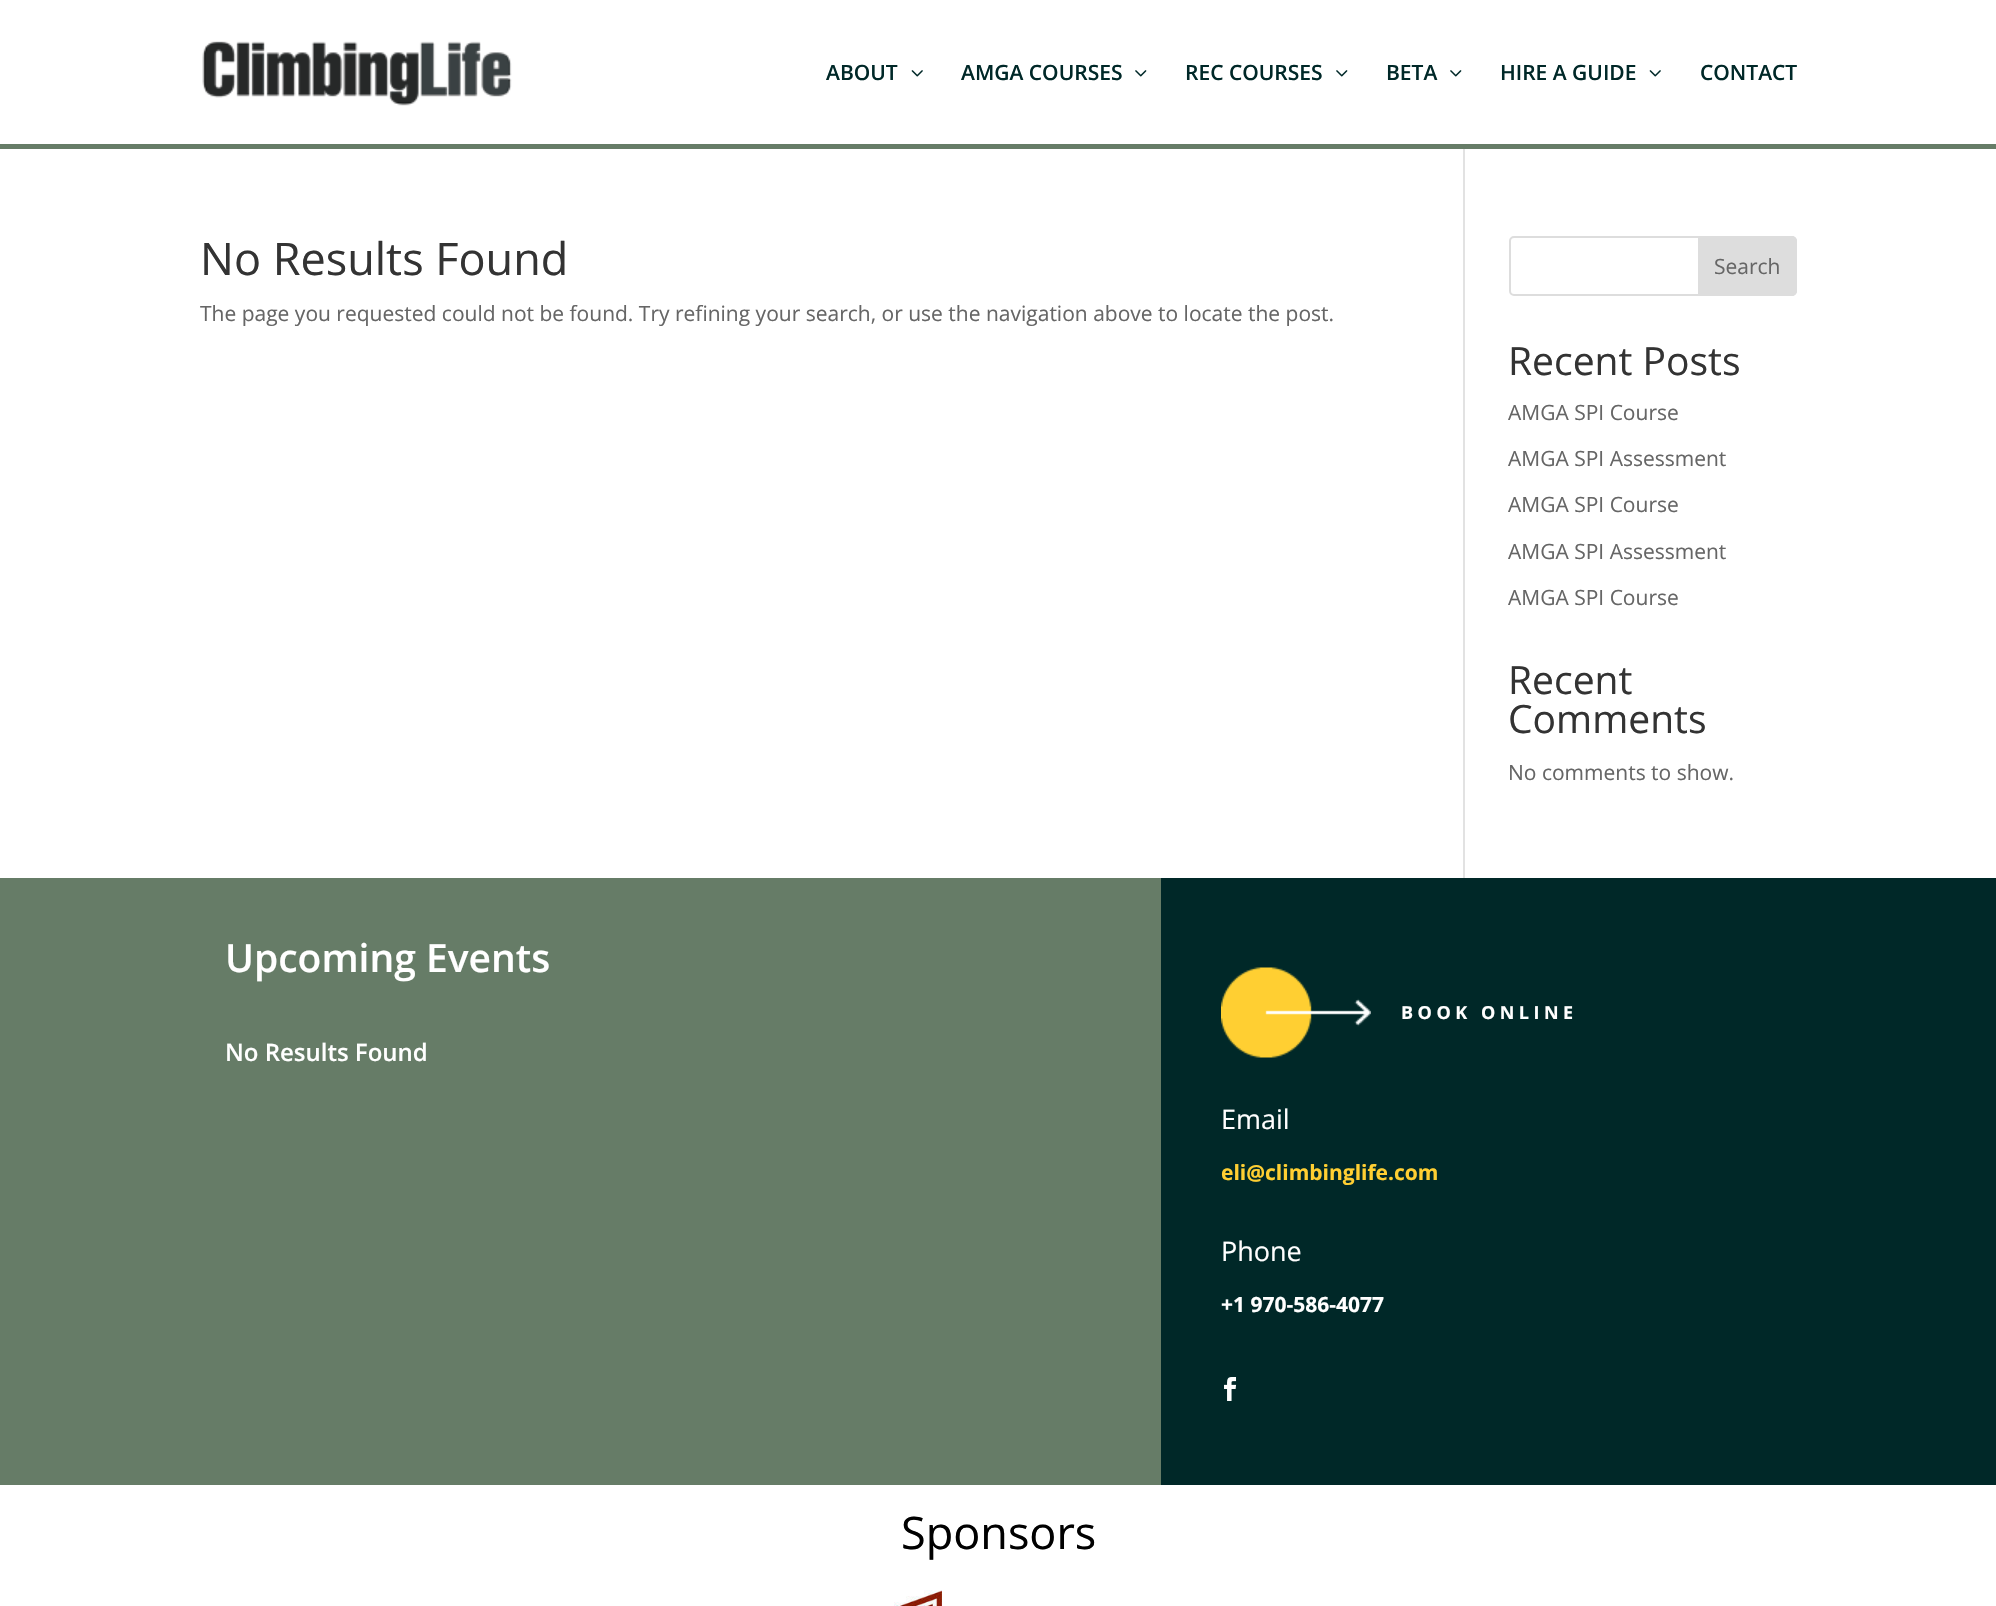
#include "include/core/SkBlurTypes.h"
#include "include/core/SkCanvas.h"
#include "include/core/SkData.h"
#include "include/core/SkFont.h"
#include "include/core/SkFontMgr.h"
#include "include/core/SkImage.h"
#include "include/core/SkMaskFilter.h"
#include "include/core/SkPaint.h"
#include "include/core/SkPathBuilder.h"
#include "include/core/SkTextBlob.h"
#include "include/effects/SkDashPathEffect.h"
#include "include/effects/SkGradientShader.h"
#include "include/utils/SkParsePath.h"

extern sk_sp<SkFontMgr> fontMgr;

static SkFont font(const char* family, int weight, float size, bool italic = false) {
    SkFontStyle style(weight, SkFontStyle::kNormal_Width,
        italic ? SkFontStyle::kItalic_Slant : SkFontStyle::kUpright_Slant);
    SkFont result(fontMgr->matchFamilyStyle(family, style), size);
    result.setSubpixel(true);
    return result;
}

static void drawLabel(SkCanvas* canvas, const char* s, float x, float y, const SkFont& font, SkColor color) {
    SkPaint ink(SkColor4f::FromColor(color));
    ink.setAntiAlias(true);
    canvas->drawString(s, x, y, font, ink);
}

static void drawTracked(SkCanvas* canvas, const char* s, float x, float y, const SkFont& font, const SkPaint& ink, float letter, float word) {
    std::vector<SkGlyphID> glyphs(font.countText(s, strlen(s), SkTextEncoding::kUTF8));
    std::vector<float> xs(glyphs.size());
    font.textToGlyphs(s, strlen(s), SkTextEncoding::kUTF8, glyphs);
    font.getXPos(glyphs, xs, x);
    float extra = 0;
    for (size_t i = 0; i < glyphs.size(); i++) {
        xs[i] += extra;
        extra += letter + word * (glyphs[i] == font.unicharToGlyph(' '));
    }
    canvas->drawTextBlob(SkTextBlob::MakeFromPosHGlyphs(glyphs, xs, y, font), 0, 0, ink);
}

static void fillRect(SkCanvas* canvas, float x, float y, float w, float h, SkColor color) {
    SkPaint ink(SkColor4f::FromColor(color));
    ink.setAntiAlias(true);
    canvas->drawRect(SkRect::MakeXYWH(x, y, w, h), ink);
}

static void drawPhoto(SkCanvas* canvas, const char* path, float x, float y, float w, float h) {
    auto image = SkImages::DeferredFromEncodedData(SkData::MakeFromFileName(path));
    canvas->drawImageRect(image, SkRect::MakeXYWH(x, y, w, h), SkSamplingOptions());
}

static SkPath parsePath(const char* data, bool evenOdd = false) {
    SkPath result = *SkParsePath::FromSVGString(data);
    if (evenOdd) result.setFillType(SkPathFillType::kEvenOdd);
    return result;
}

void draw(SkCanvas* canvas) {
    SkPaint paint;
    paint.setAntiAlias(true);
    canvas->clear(0xFFFFFFFF);
    fillRect(canvas, 0, 144, 1996, 5, 0xFF667C67);
    drawPhoto(canvas, "assets/img1.png", 202, 41, 310, 65);
    SkFont font1 = font("Open Sans", 600, 21);
    drawLabel(canvas, "ABOUT", 826, 80, font1, 0xFF002828);
    drawPhoto(canvas, "assets/img2.png", 911, 70, 12, 7);
    drawLabel(canvas, "AMGA COURSES", 961, 80, font1, 0xFF002828);
    drawPhoto(canvas, "assets/img3.png", 1135, 70, 12, 7);
    drawLabel(canvas, "REC COURSES", 1185, 80, font1, 0xFF002828);
    drawPhoto(canvas, "assets/img3.png", 1336, 70, 12, 7);
    drawLabel(canvas, "BETA", 1386, 80, font1, 0xFF002828);
    drawPhoto(canvas, "assets/img3.png", 1450, 70, 12, 7);
    drawLabel(canvas, "HIRE A GUIDE", 1500, 80, font1, 0xFF002828);
    drawPhoto(canvas, "assets/img2.png", 1649, 70, 12, 7);
    drawLabel(canvas, "CONTACT", 1700, 80, font1, 0xFF002828);
    fillRect(canvas, 1463, 149, 2, 729, 0xFFE2E2E2);
    SkFont font2 = font("Open Sans", 400, 45);
    drawLabel(canvas, "No Results Found", 200, 275, font2, 0xFF333333);
    SkFont font3 = font("Open Sans", 400, 21);
    drawLabel(canvas, "The page you requested could not be found. Try refining your search, or use the navigation above to locate the post.", 200, 321, font3, 0xFF666666);
    paint.setStroke(true);
    paint.setStrokeWidth(2);
    paint.setColor(0xFFDDDDDD);
    canvas->drawRoundRect(SkRect::MakeXYWH(1510, 237, 286, 58), 4, 4, paint);
    paint.setStroke(false);
    canvas->drawPath(parsePath("M1699 237H1792C1794 237 1796 239 1796 241V291C1796 293 1794 295 1792 295H1699Z"), paint);
    paint.setStroke(true);
    canvas->drawPath(parsePath("M1699 237H1792C1794 237 1796 239 1796 241V291C1796 293 1794 295 1792 295H1699Z"), paint);
    drawLabel(canvas, "Search", 1714, 274, font3, 0xFF666666);
    SkFont font4 = font("Open Sans", 400, 39);
    drawLabel(canvas, "Recent Posts", 1508, 375, font4, 0xFF333333);
    drawLabel(canvas, "AMGA SPI Course", 1508, 420, font3, 0xFF666666);
    drawLabel(canvas, "AMGA SPI Assessment", 1508, 466, font3, 0xFF666666);
    drawLabel(canvas, "AMGA SPI Course", 1508, 512, font3, 0xFF666666);
    drawLabel(canvas, "AMGA SPI Assessment", 1508, 559, font3, 0xFF666666);
    drawLabel(canvas, "AMGA SPI Course", 1508, 605, font3, 0xFF666666);
    drawLabel(canvas, "Recent", 1508, 694, font4, 0xFF333333);
    drawLabel(canvas, "Comments", 1508, 733, font4, 0xFF333333);
    drawLabel(canvas, "No comments to show.", 1508, 780, font3, 0xFF666666);
    fillRect(canvas, 0, 878, 1161, 607, 0xFF667C67);
    SkFont font5 = font("Open Sans", 600, 39);
    drawLabel(canvas, "Upcoming Events", 225, 972, font5, 0xFFFFFFFF);
    SkFont font6 = font("Open Sans", 600, 24);
    drawLabel(canvas, "No Results Found", 225, 1061, font6, 0xFFFFFFFF);
    fillRect(canvas, 1161, 878, 835, 607, 0xFF002828);
    drawPhoto(canvas, "assets/img4.png", 1221, 967, 150, 91);
    SkFont font7 = font("Open Sans", 700, 18);
    paint.setStroke(false);
    paint.setColor(0xFFFFFFFF);
    drawTracked(canvas, "BOOK ONLINE", 1401, 1019, font7, paint, 4.5f, 0);
    SkFont font8 = font("Open Sans", 400, 27);
    drawLabel(canvas, "Email", 1221, 1129, font8, 0xFFFFFFFF);
    SkFont font9 = font("Open Sans", 700, 21);
    drawLabel(canvas, "eli@climbinglife.com", 1221, 1180, font9, 0xFFFFCF32);
    drawLabel(canvas, "Phone", 1221, 1261, font8, 0xFFFFFFFF);
    drawLabel(canvas, "+1 970-586-4077", 1221, 1312, font9, 0xFFFFFFFF);
    drawPhoto(canvas, "assets/img5.png", 1224, 1377, 13, 24);
    drawLabel(canvas, "Sponsors", 901, 1549, font2, 0xFF000000);
    drawPhoto(canvas, "assets/img6.png", 894, 1590, 48, 16);
}
